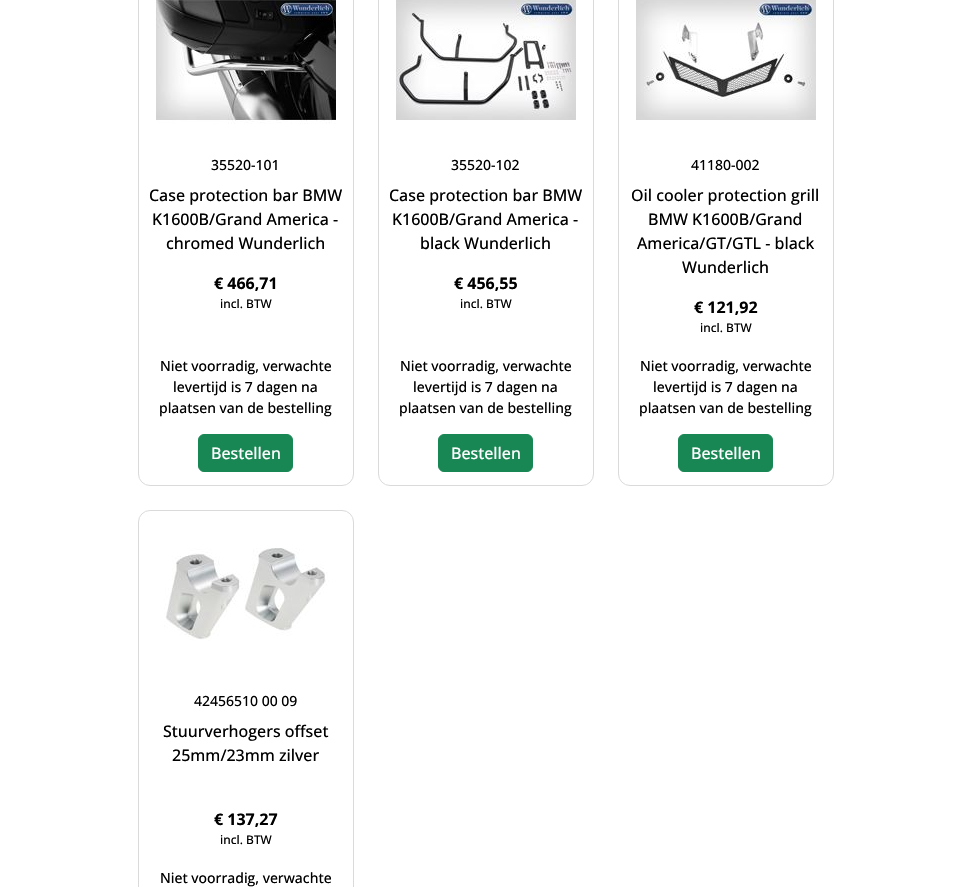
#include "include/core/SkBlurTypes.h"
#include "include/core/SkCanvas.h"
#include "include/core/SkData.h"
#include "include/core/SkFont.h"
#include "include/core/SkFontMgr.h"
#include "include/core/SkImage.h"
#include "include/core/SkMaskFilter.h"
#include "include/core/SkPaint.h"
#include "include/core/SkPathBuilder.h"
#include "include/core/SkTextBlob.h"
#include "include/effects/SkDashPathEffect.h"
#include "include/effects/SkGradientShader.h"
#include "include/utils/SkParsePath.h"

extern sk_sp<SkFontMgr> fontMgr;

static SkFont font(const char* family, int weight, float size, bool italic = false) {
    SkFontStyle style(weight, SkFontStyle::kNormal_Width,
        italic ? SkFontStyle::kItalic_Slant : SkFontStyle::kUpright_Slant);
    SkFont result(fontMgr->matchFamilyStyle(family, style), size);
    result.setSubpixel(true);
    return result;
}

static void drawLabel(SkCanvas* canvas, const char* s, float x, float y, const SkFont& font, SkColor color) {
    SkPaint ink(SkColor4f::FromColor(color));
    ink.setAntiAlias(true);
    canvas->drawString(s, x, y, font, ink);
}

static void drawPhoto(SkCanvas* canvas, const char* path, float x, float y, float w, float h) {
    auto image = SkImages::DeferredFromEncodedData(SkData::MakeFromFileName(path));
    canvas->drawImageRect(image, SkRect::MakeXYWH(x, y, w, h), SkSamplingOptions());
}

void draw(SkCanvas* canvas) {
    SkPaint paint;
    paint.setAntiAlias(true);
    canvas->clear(0xFFFFFFFF);
    paint.setStroke(true);
    paint.setStrokeWidth(1);
    paint.setColor(0xFFDADADA);
    canvas->drawRoundRect(SkRect::MakeXYWH(138.5f, -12.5f, 215, 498), 11.5f, 11.5f, paint);
    drawPhoto(canvas, "assets/img1.png", 156, 0, 180, 124);
    SkFont font1 = font("Open Sans", 500, 14);
    drawLabel(canvas, "35520-101", 211, 170, font1, 0xFF000000);
    SkFont font2 = font("Open Sans", 500, 16);
    drawLabel(canvas, "Case protection bar BMW", 149, 201, font2, 0xFF000000);
    drawLabel(canvas, "K1600B/Grand America -", 152, 225, font2, 0xFF000000);
    drawLabel(canvas, "chromed Wunderlich", 166, 249, font2, 0xFF000000);
    SkFont font3 = font("Open Sans", 700, 16);
    drawLabel(canvas, "€ 466,71", 214, 289, font3, 0xFF000000);
    SkFont font4 = font("Open Sans", 500, 12);
    drawLabel(canvas, "incl. BTW", 220, 308, font4, 0xFF000000);
    drawLabel(canvas, "Niet voorradig, verwachte", 160, 371, font1, 0xFF000000);
    drawLabel(canvas, "levertijd is 7 dagen na", 173, 392, font1, 0xFF000000);
    drawLabel(canvas, "plaatsen van de bestelling", 159, 413, font1, 0xFF000000);
    paint.setStroke(false);
    paint.setColor(0xFF198754);
    canvas->drawRoundRect(SkRect::MakeXYWH(198.5f, 434.5f, 94, 37), 5.5f, 5.5f, paint);
    paint.setStroke(true);
    canvas->drawRoundRect(SkRect::MakeXYWH(198.5f, 434.5f, 94, 37), 5.5f, 5.5f, paint);
    drawLabel(canvas, "Bestellen", 211, 459, font2, 0xFFFFFFFF);
    paint.setColor(0xFFDADADA);
    canvas->drawRoundRect(SkRect::MakeXYWH(378.5f, -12.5f, 215, 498), 11.5f, 11.5f, paint);
    drawPhoto(canvas, "assets/img2.png", 396, 0, 180, 120);
    drawLabel(canvas, "35520-102", 451, 170, font1, 0xFF000000);
    drawLabel(canvas, "Case protection bar BMW", 389, 201, font2, 0xFF000000);
    drawLabel(canvas, "K1600B/Grand America -", 392, 225, font2, 0xFF000000);
    drawLabel(canvas, "black Wunderlich", 420, 249, font2, 0xFF000000);
    drawLabel(canvas, "€ 456,55", 454, 289, font3, 0xFF000000);
    drawLabel(canvas, "incl. BTW", 460, 308, font4, 0xFF000000);
    drawLabel(canvas, "Niet voorradig, verwachte", 400, 371, font1, 0xFF000000);
    drawLabel(canvas, "levertijd is 7 dagen na", 413, 392, font1, 0xFF000000);
    drawLabel(canvas, "plaatsen van de bestelling", 399, 413, font1, 0xFF000000);
    paint.setStroke(false);
    paint.setColor(0xFF198754);
    canvas->drawRoundRect(SkRect::MakeXYWH(438.5f, 434.5f, 94, 37), 5.5f, 5.5f, paint);
    paint.setStroke(true);
    canvas->drawRoundRect(SkRect::MakeXYWH(438.5f, 434.5f, 94, 37), 5.5f, 5.5f, paint);
    drawLabel(canvas, "Bestellen", 451, 459, font2, 0xFFFFFFFF);
    paint.setColor(0xFFDADADA);
    canvas->drawRoundRect(SkRect::MakeXYWH(618.5f, -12.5f, 215, 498), 11.5f, 11.5f, paint);
    drawPhoto(canvas, "assets/img3.png", 636, 0, 180, 120);
    drawLabel(canvas, "41180-002", 691, 170, font1, 0xFF000000);
    drawLabel(canvas, "Oil cooler protection grill", 631, 201, font2, 0xFF000000);
    drawLabel(canvas, "BMW K1600B/Grand", 648, 225, font2, 0xFF000000);
    drawLabel(canvas, "America/GT/GTL - black", 637, 249, font2, 0xFF000000);
    drawLabel(canvas, "Wunderlich", 682, 273, font2, 0xFF000000);
    drawLabel(canvas, "€ 121,92", 694, 313, font3, 0xFF000000);
    drawLabel(canvas, "incl. BTW", 700, 332, font4, 0xFF000000);
    drawLabel(canvas, "Niet voorradig, verwachte", 640, 371, font1, 0xFF000000);
    drawLabel(canvas, "levertijd is 7 dagen na", 653, 392, font1, 0xFF000000);
    drawLabel(canvas, "plaatsen van de bestelling", 639, 413, font1, 0xFF000000);
    paint.setStroke(false);
    paint.setColor(0xFF198754);
    canvas->drawRoundRect(SkRect::MakeXYWH(678.5f, 434.5f, 94, 37), 5.5f, 5.5f, paint);
    paint.setStroke(true);
    canvas->drawRoundRect(SkRect::MakeXYWH(678.5f, 434.5f, 94, 37), 5.5f, 5.5f, paint);
    drawLabel(canvas, "Bestellen", 691, 459, font2, 0xFFFFFFFF);
    paint.setColor(0xFFDADADA);
    canvas->drawRoundRect(SkRect::MakeXYWH(138.5f, 510.5f, 215, 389), 11.5f, 11.5f, paint);
    drawPhoto(canvas, "assets/img4.png", 164, 548, 165, 93);
    drawLabel(canvas, "42456510 00 09", 194, 706, font1, 0xFF000000);
    drawLabel(canvas, "Stuurverhogers offset", 163, 737, font2, 0xFF000000);
    drawLabel(canvas, "25mm/23mm zilver", 172, 761, font2, 0xFF000000);
    drawLabel(canvas, "€ 137,27", 214, 825, font3, 0xFF000000);
    drawLabel(canvas, "incl. BTW", 220, 844, font4, 0xFF000000);
    drawLabel(canvas, "Niet voorradig, verwachte", 160, 883, font1, 0xFF000000);
}
